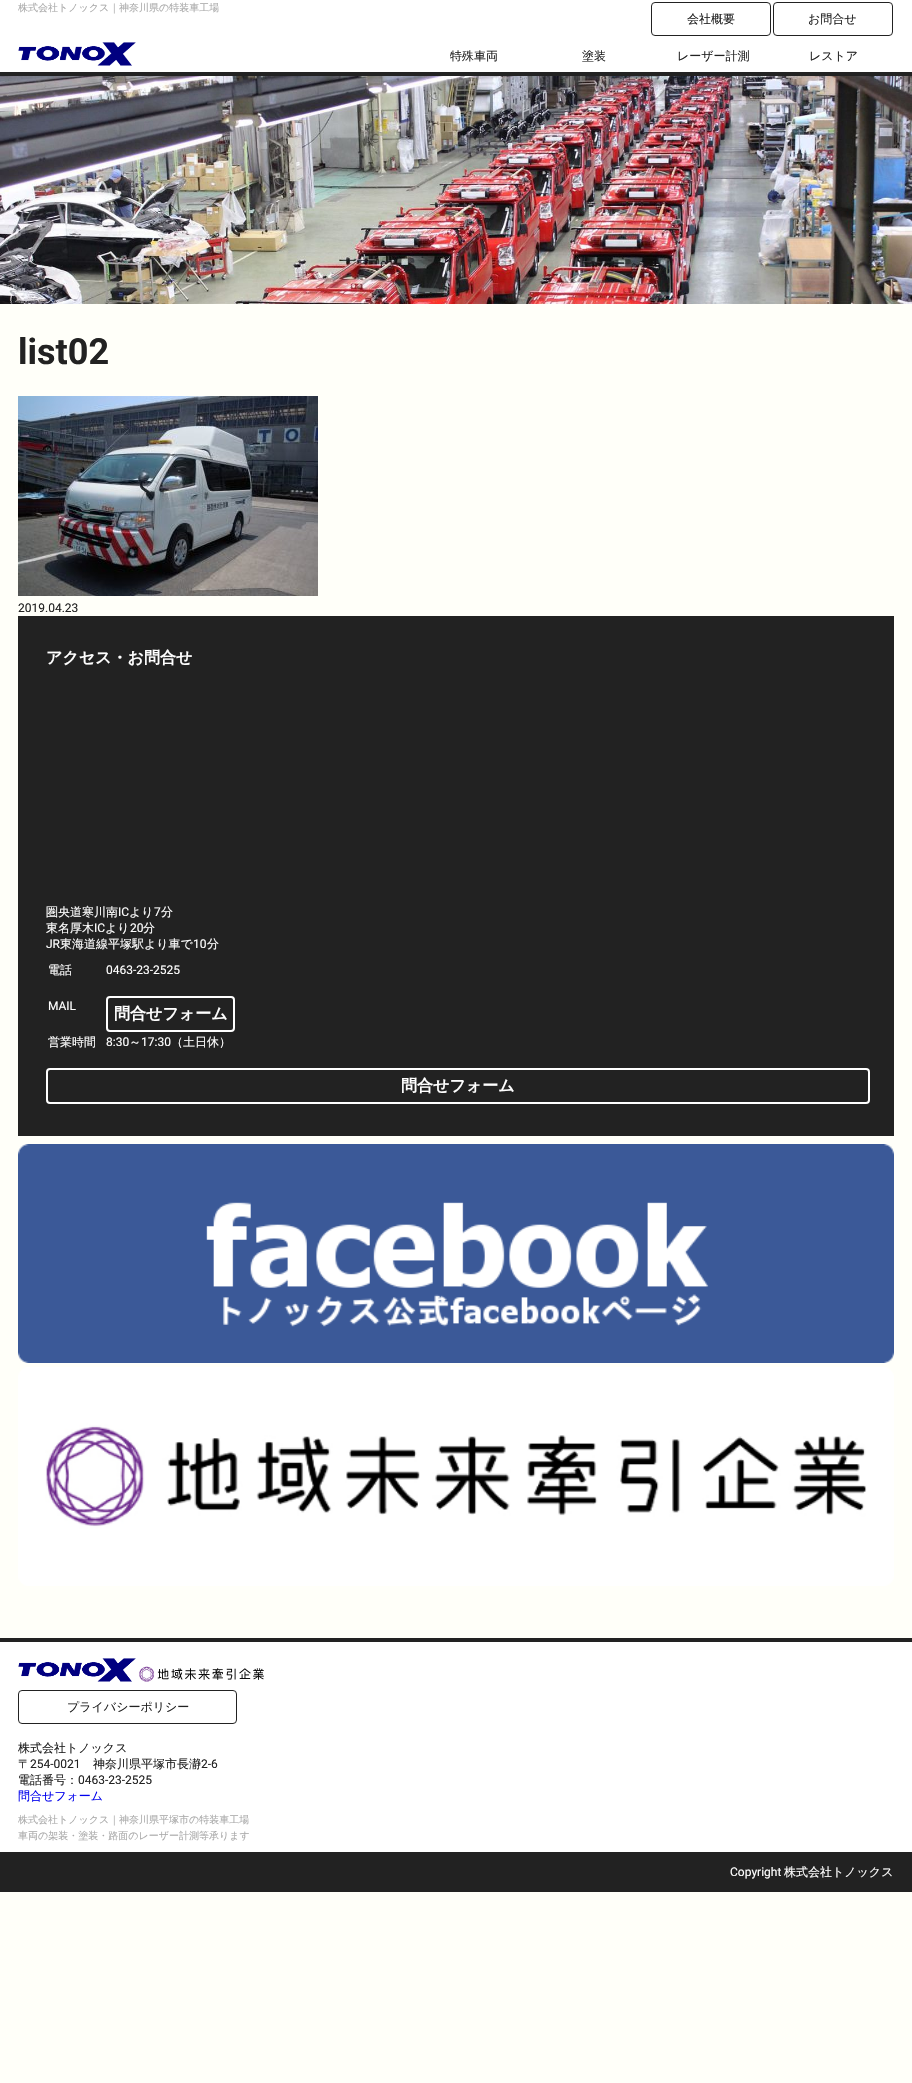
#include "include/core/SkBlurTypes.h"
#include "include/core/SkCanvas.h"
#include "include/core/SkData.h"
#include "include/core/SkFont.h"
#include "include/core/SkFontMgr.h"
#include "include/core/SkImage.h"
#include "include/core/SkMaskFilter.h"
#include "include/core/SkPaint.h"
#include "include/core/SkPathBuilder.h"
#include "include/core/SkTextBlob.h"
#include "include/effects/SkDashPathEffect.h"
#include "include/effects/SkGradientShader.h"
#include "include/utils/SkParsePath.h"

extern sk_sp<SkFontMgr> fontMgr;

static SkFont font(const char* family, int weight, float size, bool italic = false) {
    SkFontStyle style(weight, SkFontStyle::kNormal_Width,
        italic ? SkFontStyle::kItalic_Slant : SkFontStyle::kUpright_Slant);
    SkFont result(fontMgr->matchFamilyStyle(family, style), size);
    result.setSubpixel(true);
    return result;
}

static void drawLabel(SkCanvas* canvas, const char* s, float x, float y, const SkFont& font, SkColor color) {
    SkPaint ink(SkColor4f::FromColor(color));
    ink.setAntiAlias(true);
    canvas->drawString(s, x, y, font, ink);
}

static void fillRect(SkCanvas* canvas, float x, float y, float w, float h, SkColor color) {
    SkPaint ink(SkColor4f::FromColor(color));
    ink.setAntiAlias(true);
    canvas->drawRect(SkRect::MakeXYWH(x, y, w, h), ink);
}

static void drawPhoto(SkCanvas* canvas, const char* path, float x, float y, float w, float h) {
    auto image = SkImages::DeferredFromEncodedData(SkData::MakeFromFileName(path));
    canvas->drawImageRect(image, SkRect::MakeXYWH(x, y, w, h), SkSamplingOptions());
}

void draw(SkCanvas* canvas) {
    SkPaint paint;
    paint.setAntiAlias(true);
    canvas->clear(0xFFFFFFF9);
    fillRect(canvas, 0, 0, 912, 72, 0xFFFFFFFF);
    fillRect(canvas, 0, 72, 912, 4, 0xFF222222);
    SkFont font1 = font("WenQuanYi Zen Hei", 500, 10);
    drawLabel(canvas, "株式会社トノックス｜神奈川県の特装車工場", 18, 11, font1, 0xFFAAAAAA);
    paint.setStroke(true);
    paint.setStrokeWidth(1);
    paint.setColor(0xFF222222);
    canvas->drawRoundRect(SkRect::MakeXYWH(651.5f, 2.5f, 119, 33), 3.5f, 3.5f, paint);
    SkFont font2 = font("WenQuanYi Zen Hei", 500, 12);
    drawLabel(canvas, "会社概要", 687, 23, font2, 0xFF222222);
    canvas->drawRoundRect(SkRect::MakeXYWH(773.5f, 2.5f, 119, 33), 3.5f, 3.5f, paint);
    drawLabel(canvas, "お問合せ", 808, 23, font2, 0xFF222222);
    drawPhoto(canvas, "assets/img1.png", 18, 42, 118, 24);
    drawLabel(canvas, "特殊車両", 450, 60, font2, 0xFF222222);
    drawLabel(canvas, "塗装", 582, 60, font2, 0xFF222222);
    drawLabel(canvas, "レーザー計測", 677, 60, font2, 0xFF222222);
    drawLabel(canvas, "レストア", 809, 60, font2, 0xFF222222);
    drawPhoto(canvas, "assets/img2.png", 0, 76, 912, 228);
    SkFont font3 = font("Roboto", 700, 36);
    drawLabel(canvas, "list02", 18, 364, font3, 0xFF222222);
    drawPhoto(canvas, "assets/img3.png", 18, 396, 300, 200);
    SkFont font4 = font("Roboto", 400, 12);
    drawLabel(canvas, "2019.04.23", 18, 612, font4, 0xFF222222);
    fillRect(canvas, 18, 616, 876, 520, 0xFF222222);
    SkFont font5 = font("WenQuanYi Zen Hei", 700, 16);
    drawLabel(canvas, "アクセス・お問合せ", 46, 663, font5, 0xFFFFFFFF);
    drawLabel(canvas, "圏央道寒川南", 46, 916, font2, 0xFFFFFFFF);
    drawLabel(canvas, "IC", 118, 916, font4, 0xFFFFFFFF);
    drawLabel(canvas, "より", 129, 916, font2, 0xFFFFFFFF);
    drawLabel(canvas, "7", 154, 916, font4, 0xFFFFFFFF);
    drawLabel(canvas, "分", 161, 916, font2, 0xFFFFFFFF);
    drawLabel(canvas, "東名厚木", 46, 932, font2, 0xFFFFFFFF);
    drawLabel(canvas, "IC", 94, 932, font4, 0xFFFFFFFF);
    drawLabel(canvas, "より", 105, 932, font2, 0xFFFFFFFF);
    drawLabel(canvas, "20", 130, 932, font4, 0xFFFFFFFF);
    drawLabel(canvas, "分", 143, 932, font2, 0xFFFFFFFF);
    drawLabel(canvas, "JR", 46, 948, font4, 0xFFFFFFFF);
    drawLabel(canvas, "東海道線平塚駅より車で", 60, 948, font2, 0xFFFFFFFF);
    drawLabel(canvas, "10", 193, 948, font4, 0xFFFFFFFF);
    drawLabel(canvas, "分", 207, 948, font2, 0xFFFFFFFF);
    drawLabel(canvas, "電話", 48, 974, font2, 0xFFFFFFFF);
    drawLabel(canvas, "0463-23-2525", 106, 974, font4, 0xFFFFFFFF);
    drawLabel(canvas, "MAIL", 48, 1010, font4, 0xFFFFFFFF);
    paint.setStrokeWidth(2);
    paint.setColor(0xFFFFFFFF);
    canvas->drawRoundRect(SkRect::MakeXYWH(107, 997, 127, 34), 3, 3, paint);
    drawLabel(canvas, "問合せフォーム", 114, 1019, font5, 0xFFFFFFFF);
    drawLabel(canvas, "営業時間", 48, 1046, font2, 0xFFFFFFFF);
    drawLabel(canvas, "8:30", 106, 1046, font4, 0xFFFFFFFF);
    drawLabel(canvas, "～", 129, 1046, font2, 0xFFFFFFFF);
    drawLabel(canvas, "17:30", 141, 1046, font4, 0xFFFFFFFF);
    drawLabel(canvas, "（土日休）", 171, 1046, font2, 0xFFFFFFFF);
    canvas->drawRoundRect(SkRect::MakeXYWH(47, 1069, 822, 34), 3, 3, paint);
    drawLabel(canvas, "問合せフォーム", 401, 1091, font5, 0xFFFFFFFF);
    drawPhoto(canvas, "assets/img4.png", 18, 1144, 876, 219);
    drawPhoto(canvas, "assets/img5.png", 18, 1367, 876, 219);
    fillRect(canvas, 0, 1642, 912, 210, 0xFFFFFFFF);
    fillRect(canvas, 0, 1638, 912, 4, 0xFF222222);
    drawPhoto(canvas, "assets/img6.png", 18, 1658, 118, 24);
    drawPhoto(canvas, "assets/img7.png", 139, 1666, 125, 16);
    paint.setStrokeWidth(1);
    paint.setColor(0xFF222222);
    canvas->drawRoundRect(SkRect::MakeXYWH(18.5f, 1690.5f, 218, 33), 3.5f, 3.5f, paint);
    drawLabel(canvas, "プライバシーポリシー", 67, 1711, font2, 0xFF222222);
    drawLabel(canvas, "株式会社トノックス", 18, 1752, font2, 0xFF222222);
    drawLabel(canvas, "〒", 18, 1768, font2, 0xFF222222);
    drawLabel(canvas, "254-0021", 30, 1768, font4, 0xFF222222);
    drawLabel(canvas, "神奈川県平塚市長瀞", 93, 1768, font2, 0xFF222222);
    drawLabel(canvas, "2-6", 201, 1768, font4, 0xFF222222);
    drawLabel(canvas, "電話番号：", 18, 1784, font2, 0xFF222222);
    drawLabel(canvas, "0463-23-2525", 78, 1784, font4, 0xFF222222);
    drawLabel(canvas, "問合せフォーム", 18, 1800, font2, 0xFF0000EE);
    drawLabel(canvas, "株式会社トノックス｜神奈川県平塚市の特装車工場", 18, 1823, font1, 0xFFAAAAAA);
    drawLabel(canvas, "車両の架装・塗装・路面のレーザー計測等承ります", 18, 1839, font1, 0xFFAAAAAA);
    fillRect(canvas, 0, 1852, 912, 40, 0xFF222222);
    drawLabel(canvas, "Copyright", 730, 1876, font4, 0xFFFFFFFF);
    drawLabel(canvas, "株式会社トノックス", 784, 1876, font2, 0xFFFFFFFF);
}
